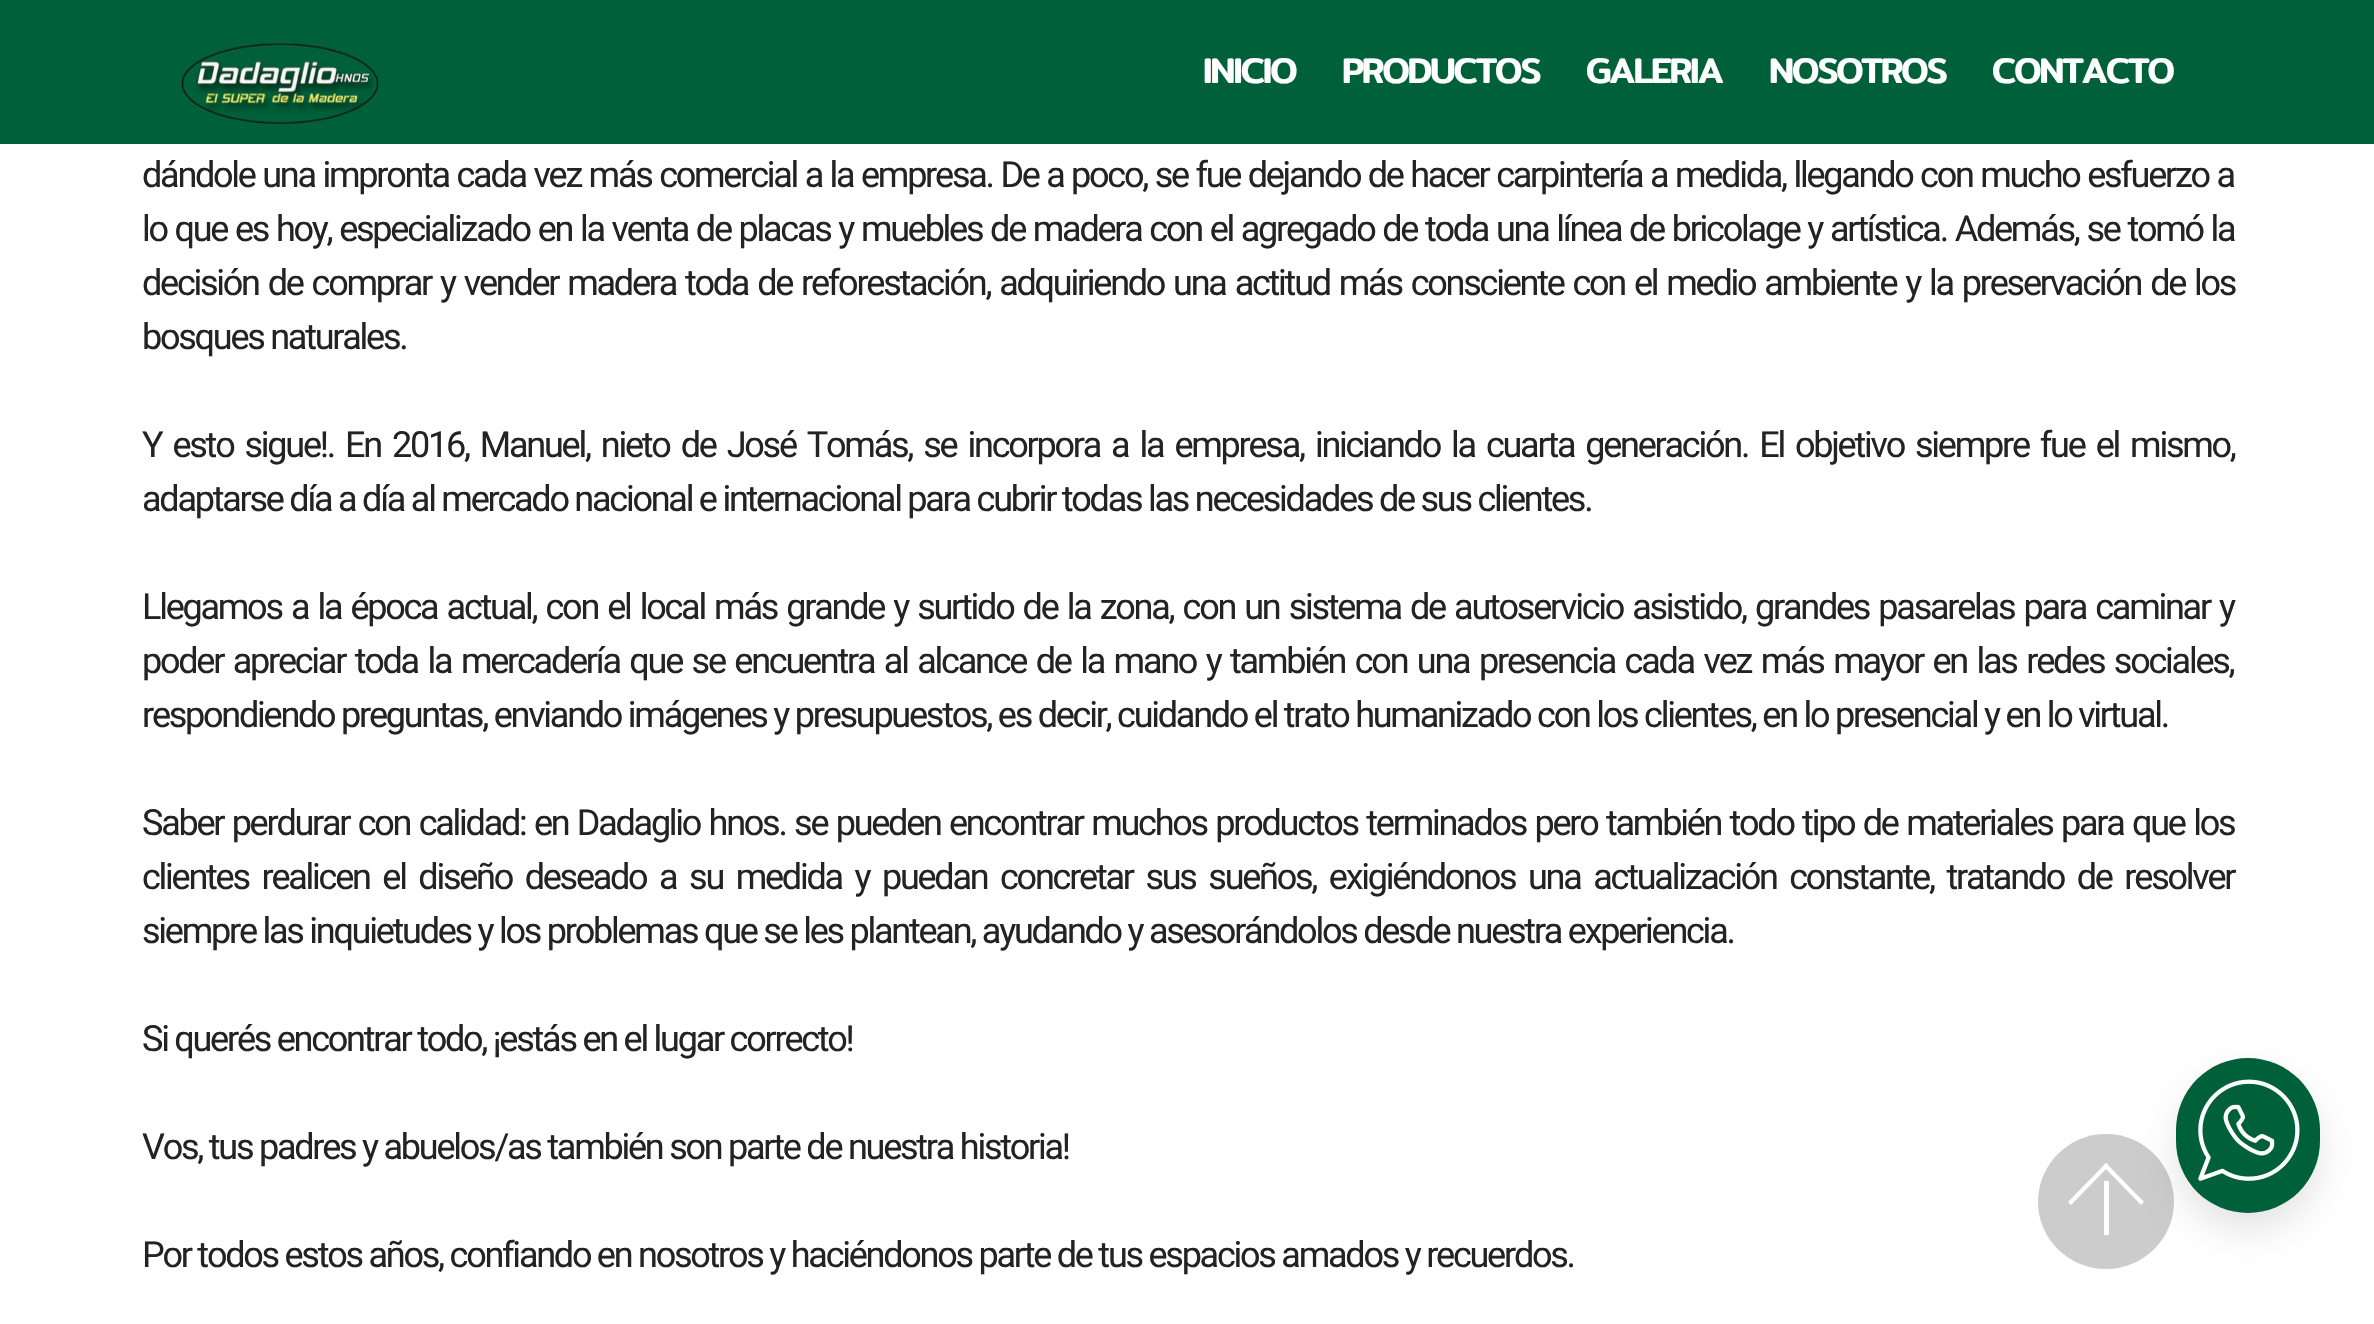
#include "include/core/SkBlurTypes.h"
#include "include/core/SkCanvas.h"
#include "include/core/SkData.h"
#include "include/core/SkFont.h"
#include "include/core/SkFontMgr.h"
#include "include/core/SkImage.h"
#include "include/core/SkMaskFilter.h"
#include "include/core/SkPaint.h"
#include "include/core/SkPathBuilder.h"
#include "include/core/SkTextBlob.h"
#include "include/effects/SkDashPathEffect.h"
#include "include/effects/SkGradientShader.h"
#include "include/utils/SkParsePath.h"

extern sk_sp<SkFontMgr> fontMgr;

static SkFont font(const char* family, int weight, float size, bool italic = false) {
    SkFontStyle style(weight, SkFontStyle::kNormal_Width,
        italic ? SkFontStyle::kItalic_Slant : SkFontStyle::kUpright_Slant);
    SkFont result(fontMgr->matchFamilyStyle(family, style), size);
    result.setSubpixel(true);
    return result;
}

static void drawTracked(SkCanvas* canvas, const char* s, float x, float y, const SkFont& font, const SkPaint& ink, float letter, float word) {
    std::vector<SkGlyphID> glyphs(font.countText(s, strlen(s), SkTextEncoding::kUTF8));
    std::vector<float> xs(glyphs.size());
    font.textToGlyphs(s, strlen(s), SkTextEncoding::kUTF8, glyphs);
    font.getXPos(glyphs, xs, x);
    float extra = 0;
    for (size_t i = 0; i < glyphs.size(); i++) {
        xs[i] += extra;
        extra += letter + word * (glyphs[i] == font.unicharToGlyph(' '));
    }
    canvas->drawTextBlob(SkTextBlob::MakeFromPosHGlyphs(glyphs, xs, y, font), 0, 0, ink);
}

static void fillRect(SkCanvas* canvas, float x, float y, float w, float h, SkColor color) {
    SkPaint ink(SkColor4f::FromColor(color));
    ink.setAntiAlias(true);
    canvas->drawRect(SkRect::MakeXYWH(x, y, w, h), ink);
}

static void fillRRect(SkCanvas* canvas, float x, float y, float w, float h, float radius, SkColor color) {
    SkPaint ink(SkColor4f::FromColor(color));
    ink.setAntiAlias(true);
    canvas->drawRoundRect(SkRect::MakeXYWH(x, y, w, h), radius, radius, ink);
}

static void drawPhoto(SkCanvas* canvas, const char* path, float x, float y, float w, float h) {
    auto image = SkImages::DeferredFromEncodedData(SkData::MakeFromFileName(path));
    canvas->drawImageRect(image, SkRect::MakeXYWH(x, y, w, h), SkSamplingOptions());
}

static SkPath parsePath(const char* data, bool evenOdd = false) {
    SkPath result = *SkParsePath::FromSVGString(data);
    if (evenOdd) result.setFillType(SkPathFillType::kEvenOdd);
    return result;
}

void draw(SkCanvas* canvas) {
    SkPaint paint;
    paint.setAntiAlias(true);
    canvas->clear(0xFFFFFFFF);
    fillRect(canvas, 0, 0, 2374, 144, 0xFF00603A);
    drawPhoto(canvas, "assets/img1.png", 181, 43, 198, 82);
    SkFont font1 = font("Mitr", 500, 36);
    paint.setColor(0xFFFFFFFF);
    drawTracked(canvas, "INICIO", 1203, 83, font1, paint, -2.25f, 0);
    drawTracked(canvas, "PRODUCTOS", 1342, 83, font1, paint, -2.25f, 0);
    drawTracked(canvas, "GALERIA", 1586, 83, font1, paint, -2.25f, 0);
    drawTracked(canvas, "NOSOTROS", 1769, 83, font1, paint, -2.25f, 0);
    drawTracked(canvas, "CONTACTO", 1992, 83, font1, paint, -2.25f, 0);
    SkFont font2 = font("Roboto", 400, 36);
    paint.setColor(0xFF232323);
    drawTracked(canvas, "dándole una impronta cada vez más comercial a la empresa. De a poco, se fue dejando de hacer carpintería a medida, llegando con mucho esfuerzo a", 142, 187, font2, paint, -2.25f, 0.9f);
    drawTracked(canvas, "lo que es hoy, especializado en la venta de placas y muebles de madera con el agregado de toda una línea de bricolage y artística. Además, se tomó la", 142, 241, font2, paint, -2.25f, 1.1f);
    drawTracked(canvas, "decisión de comprar y vender madera toda de reforestación, adquiriendo una actitud más consciente con el medio ambiente y la preservación de los", 142, 295, font2, paint, -2.25f, 2.3f);
    drawTracked(canvas, "bosques naturales.", 142, 349, font2, paint, -2.25f, 0);
    drawTracked(canvas, "Y esto sigue!. En 2016, Manuel, nieto de José Tomás, se incorpora a la empresa, iniciando la cuarta generación. El objetivo siempre fue el mismo,", 142, 457, font2, paint, -2.25f, 4.4f);
    drawTracked(canvas, "adaptarse día a día al mercado nacional e internacional para cubrir todas las necesidades de sus clientes.", 142, 511, font2, paint, -2.25f, 0);
    drawTracked(canvas, "Llegamos a la época actual, con el local más grande y surtido de la zona, con un sistema de autoservicio asistido, grandes pasarelas para caminar y", 142, 619, font2, paint, -2.25f, 2.5f);
    drawTracked(canvas, "poder apreciar toda la mercadería que se encuentra al alcance de la mano y también con una presencia cada vez más mayor en las redes sociales,", 142, 673, font2, paint, -2.25f, 2.9f);
    drawTracked(canvas, "respondiendo preguntas, enviando imágenes y presupuestos, es decir, cuidando el trato humanizado con los clientes, en lo presencial y en lo virtual.", 142, 727, font2, paint, -2.25f, 0);
    drawTracked(canvas, "Saber perdurar con calidad: en Dadaglio hnos. se pueden encontrar muchos productos terminados pero también todo tipo de materiales para que los", 142, 835, font2, paint, -2.25f, 1.75f);
    drawTracked(canvas, "clientes realicen el diseño deseado a su medida y puedan concretar sus sueños, exigiéndonos una actualización constante, tratando de resolver", 142, 889, font2, paint, -2.25f, 6);
    drawTracked(canvas, "siempre las inquietudes y los problemas que se les plantean, ayudando y asesorándolos desde nuestra experiencia.", 142, 943, font2, paint, -2.25f, 0);
    drawTracked(canvas, "Si querés encontrar todo, ¡estás en el lugar correcto!", 142, 1051, font2, paint, -2.25f, 0);
    drawTracked(canvas, "Vos, tus padres y abuelos/as también son parte de nuestra historia!", 142, 1159, font2, paint, -2.25f, 0);
    drawTracked(canvas, "Por todos estos años, confiando en nosotros y haciéndonos parte de tus espacios amados y recuerdos.", 142, 1267, font2, paint, -2.25f, 0);
    paint.setColor(0x1A000000);
    paint.setMaskFilter(SkMaskFilter::MakeBlur(kNormal_SkBlurStyle, 17));
    canvas->drawRoundRect(SkRect::MakeXYWH(2176, 1076, 144, 155), 72, 72, paint);
    paint.setMaskFilter(nullptr);
    fillRRect(canvas, 2176, 1058, 144, 155, 72, 0xFF00603A);
    drawPhoto(canvas, "assets/img2.png", 2198, 1079, 102, 102);
    paint.setColor(0x33000000);
    canvas->drawPath(parsePath("M2106 1269C2069 1269 2038 1239 2038 1202C2038 1164 2069 1134 2106 1134C2143 1134 2174 1164 2174 1202C2174 1239 2143 1269 2106 1269Z"), paint);
    fillRect(canvas, 2104, 1181, 5, 54, 0xFFFFFFFF);
    paint.setColor(0xFFFFFFFF);
    canvas->drawPath(parsePath("M2068 1202L2106 1163L2109 1166L2071 1205Z"), paint);
    canvas->drawPath(parsePath("M2103 1166L2106 1163L2144 1202L2141 1205Z"), paint);
}
